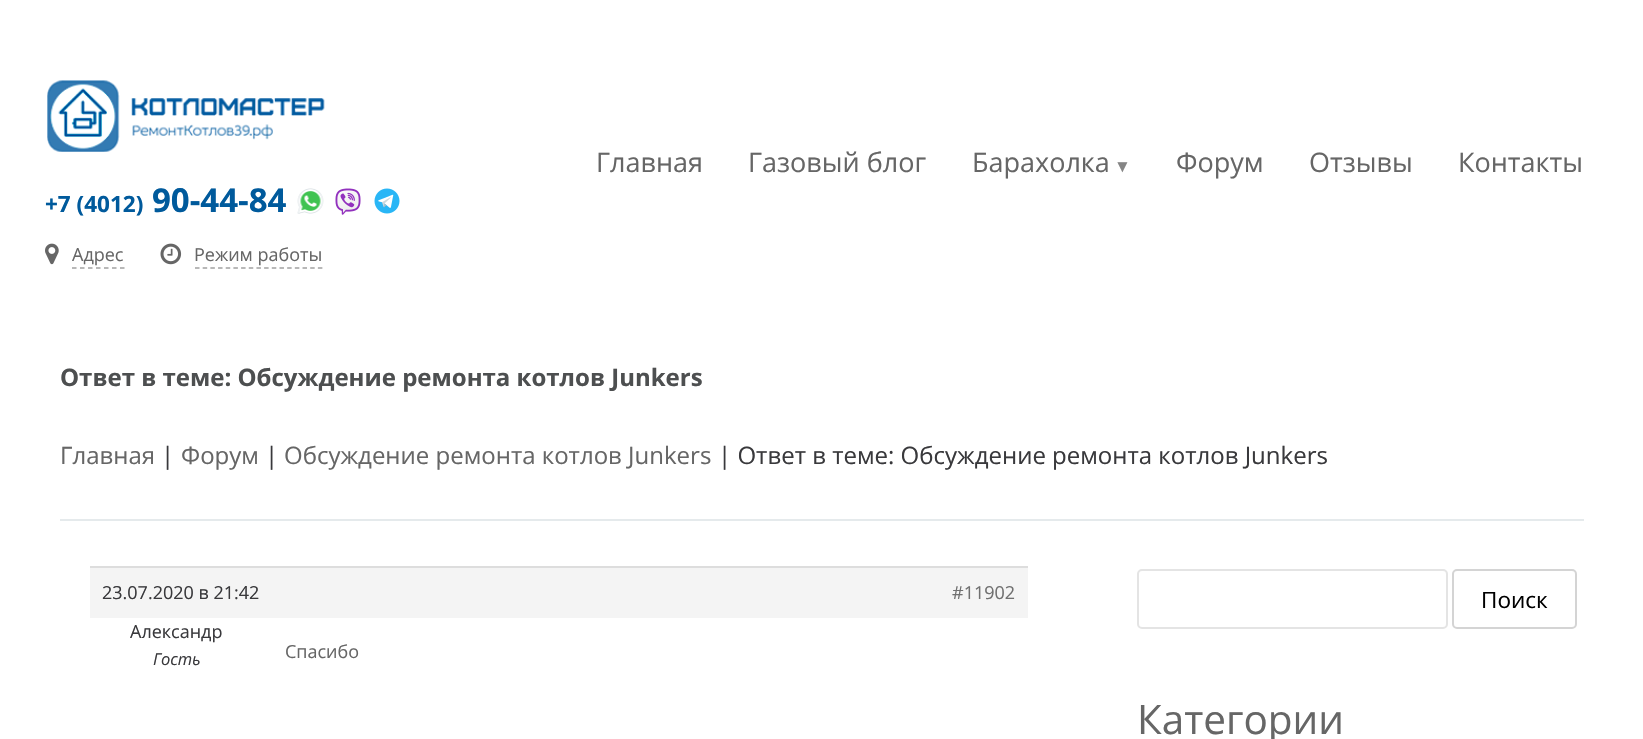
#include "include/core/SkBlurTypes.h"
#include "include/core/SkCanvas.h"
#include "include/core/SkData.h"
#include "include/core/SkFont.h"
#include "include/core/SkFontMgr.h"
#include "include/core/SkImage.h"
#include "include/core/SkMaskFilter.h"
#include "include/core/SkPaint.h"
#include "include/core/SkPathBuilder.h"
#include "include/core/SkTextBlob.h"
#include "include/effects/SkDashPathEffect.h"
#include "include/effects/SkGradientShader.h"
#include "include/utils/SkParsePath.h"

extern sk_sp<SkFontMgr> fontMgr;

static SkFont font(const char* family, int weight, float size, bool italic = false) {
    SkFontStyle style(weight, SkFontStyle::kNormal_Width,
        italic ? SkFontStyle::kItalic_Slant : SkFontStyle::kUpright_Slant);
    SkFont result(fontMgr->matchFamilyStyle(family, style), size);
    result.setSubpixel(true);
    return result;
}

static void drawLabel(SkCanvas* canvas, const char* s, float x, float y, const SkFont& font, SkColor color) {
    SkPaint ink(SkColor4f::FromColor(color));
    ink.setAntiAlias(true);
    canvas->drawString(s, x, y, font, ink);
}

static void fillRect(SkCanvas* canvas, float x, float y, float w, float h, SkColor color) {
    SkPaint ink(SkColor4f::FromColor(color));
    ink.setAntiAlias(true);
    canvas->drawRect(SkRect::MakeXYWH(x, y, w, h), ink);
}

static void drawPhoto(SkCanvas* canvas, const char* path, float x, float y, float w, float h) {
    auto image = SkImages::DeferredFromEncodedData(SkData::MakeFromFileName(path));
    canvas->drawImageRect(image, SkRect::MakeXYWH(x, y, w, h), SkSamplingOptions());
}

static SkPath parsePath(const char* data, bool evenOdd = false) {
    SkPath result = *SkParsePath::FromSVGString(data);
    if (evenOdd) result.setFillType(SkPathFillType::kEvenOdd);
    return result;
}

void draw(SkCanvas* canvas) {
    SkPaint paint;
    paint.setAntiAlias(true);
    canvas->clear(0xFFFFFFFF);
    SkFont font1 = font("Open Sans", 400, 27);
    drawLabel(canvas, "Главная", 596, 172, font1, 0xFF666666);
    drawLabel(canvas, "Газовый блог", 748, 172, font1, 0xFF666666);
    drawLabel(canvas, "Барахолка", 972, 172, font1, 0xFF666666);
    SkFont font2 = font("Liberation Sans", 400, 17);
    drawLabel(canvas, "▼", 1114, 172, font2, 0xFF858585);
    drawLabel(canvas, "Форум", 1176, 172, font1, 0xFF666666);
    drawLabel(canvas, "Отзывы", 1309, 172, font1, 0xFF666666);
    drawLabel(canvas, "Контакты", 1458, 172, font1, 0xFF666666);
    drawPhoto(canvas, "assets/img1.png", 47, 80, 278, 72);
    SkFont font3 = font("Open Sans", 700, 22.5f);
    drawLabel(canvas, "+7 (4012)", 45, 212, font3, 0xFF005A9C);
    SkFont font4 = font("Open Sans", 700, 33);
    drawLabel(canvas, "90-44-84", 152, 212, font4, 0xFF005A9C);
    drawPhoto(canvas, "assets/img2.png", 297, 188, 27, 26);
    drawPhoto(canvas, "assets/img3.png", 335, 188, 26, 27);
    drawPhoto(canvas, "assets/img4.png", 374, 188, 26, 26);
    drawPhoto(canvas, "assets/img5.png", 45, 243, 14, 22);
    SkFont font5 = font("Open Sans", 400, 18);
    drawLabel(canvas, "Адрес", 72, 261, font5, 0xFF666666);
    paint.setStroke(true);
    paint.setStrokeWidth(1.5f);
    paint.setColor(0xFFA1A1A1);
    paint.setPathEffect(SkDashPathEffect::Make({{4.5f, 3.5f}}, 0));
    canvas->drawPath(parsePath("M72 268H124.5"), paint);
    paint.setPathEffect(nullptr);
    drawPhoto(canvas, "assets/img6.png", 160, 243, 22, 22);
    drawLabel(canvas, "Режим работы", 194, 261, font5, 0xFF666666);
    paint.setPathEffect(SkDashPathEffect::Make({{4.5f, 3.18f}}, 0));
    canvas->drawPath(parsePath("M195 268H322.5"), paint);
    paint.setPathEffect(nullptr);
    SkFont font6 = font("Open Sans", 700, 24);
    drawLabel(canvas, "Ответ в теме: Обсуждение ремонта котлов Junkers", 60, 386, font6, 0xFF4D4F50);
    SkFont font7 = font("Open Sans", 400, 24);
    drawLabel(canvas, "Главная", 60, 464, font7, 0xFF666666);
    drawLabel(canvas, "|", 161, 464, font7, 0xFF39393C);
    drawLabel(canvas, "Форум", 181, 464, font7, 0xFF666666);
    drawLabel(canvas, "|", 265, 464, font7, 0xFF39393C);
    drawLabel(canvas, "Обсуждение ремонта котлов Junkers", 284, 464, font7, 0xFF666666);
    drawLabel(canvas, "| Ответ в теме: Обсуждение ремонта котлов Junkers", 718, 464, font7, 0xFF39393C);
    fillRect(canvas, 60, 519, 1524, 2, 0xFFE5EAEC);
    fillRect(canvas, 90, 568, 938, 50, 0xFFF4F4F4);
    fillRect(canvas, 90, 566, 938, 2, 0xFFDDDDDD);
    drawLabel(canvas, "23.07.2020 в 21:42", 102, 599, font5, 0xFF39393C);
    drawLabel(canvas, "#11902", 952, 599, font5, 0xFF707070);
    drawLabel(canvas, "Александр", 130, 638, font5, 0xFF39393C);
    SkFont font8 = font("Open Sans", 400, 16.5f, true);
    drawLabel(canvas, "Гость", 153, 665, font8, 0xFF39393C);
    drawLabel(canvas, "Спасибо", 285, 658, font5, 0xFF666666);
    paint.setStrokeWidth(2);
    paint.setColor(0xFFE4E4E4);
    canvas->drawRoundRect(SkRect::MakeXYWH(1138, 570, 309, 58), 4, 4, paint);
    paint.setColor(0xFFD4D4D4);
    canvas->drawRoundRect(SkRect::MakeXYWH(1453, 570, 123, 58), 4, 4, paint);
    SkFont font9 = font("Open Sans", 400, 22.5f);
    drawLabel(canvas, "Поиск", 1481, 608, font9, 0xFF000000);
    SkFont font10 = font("Open Sans", 400, 40.5f);
    drawLabel(canvas, "Категории", 1137, 734, font10, 0xFF666666);
}
